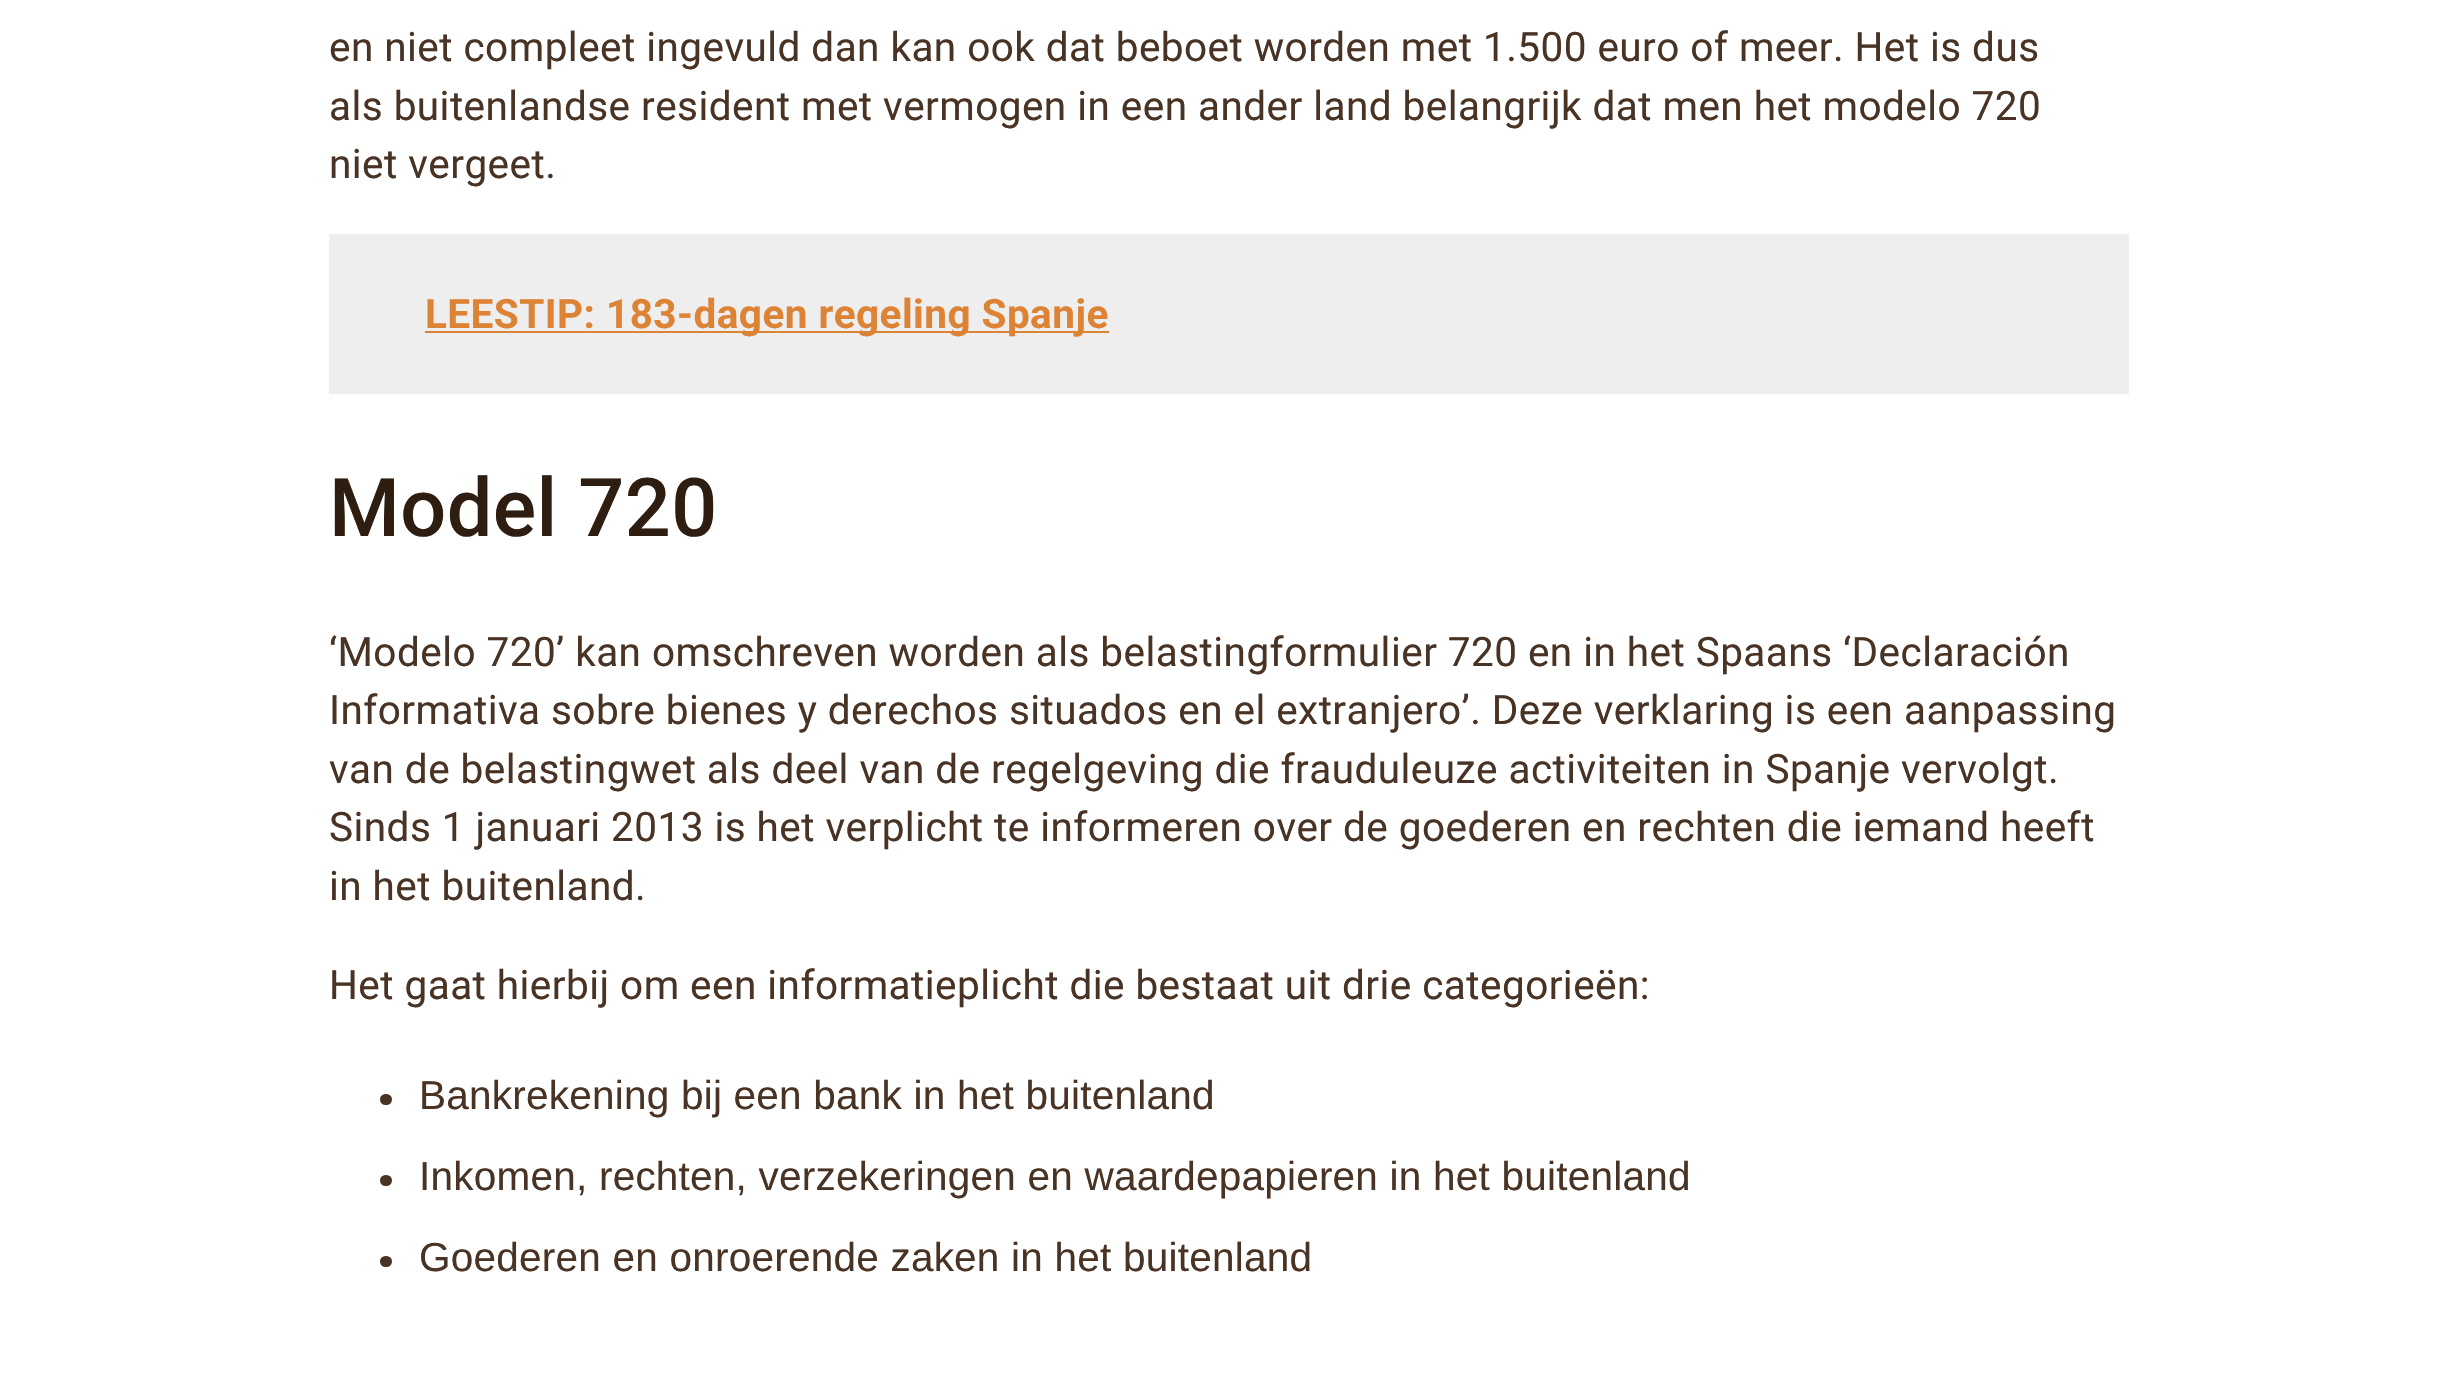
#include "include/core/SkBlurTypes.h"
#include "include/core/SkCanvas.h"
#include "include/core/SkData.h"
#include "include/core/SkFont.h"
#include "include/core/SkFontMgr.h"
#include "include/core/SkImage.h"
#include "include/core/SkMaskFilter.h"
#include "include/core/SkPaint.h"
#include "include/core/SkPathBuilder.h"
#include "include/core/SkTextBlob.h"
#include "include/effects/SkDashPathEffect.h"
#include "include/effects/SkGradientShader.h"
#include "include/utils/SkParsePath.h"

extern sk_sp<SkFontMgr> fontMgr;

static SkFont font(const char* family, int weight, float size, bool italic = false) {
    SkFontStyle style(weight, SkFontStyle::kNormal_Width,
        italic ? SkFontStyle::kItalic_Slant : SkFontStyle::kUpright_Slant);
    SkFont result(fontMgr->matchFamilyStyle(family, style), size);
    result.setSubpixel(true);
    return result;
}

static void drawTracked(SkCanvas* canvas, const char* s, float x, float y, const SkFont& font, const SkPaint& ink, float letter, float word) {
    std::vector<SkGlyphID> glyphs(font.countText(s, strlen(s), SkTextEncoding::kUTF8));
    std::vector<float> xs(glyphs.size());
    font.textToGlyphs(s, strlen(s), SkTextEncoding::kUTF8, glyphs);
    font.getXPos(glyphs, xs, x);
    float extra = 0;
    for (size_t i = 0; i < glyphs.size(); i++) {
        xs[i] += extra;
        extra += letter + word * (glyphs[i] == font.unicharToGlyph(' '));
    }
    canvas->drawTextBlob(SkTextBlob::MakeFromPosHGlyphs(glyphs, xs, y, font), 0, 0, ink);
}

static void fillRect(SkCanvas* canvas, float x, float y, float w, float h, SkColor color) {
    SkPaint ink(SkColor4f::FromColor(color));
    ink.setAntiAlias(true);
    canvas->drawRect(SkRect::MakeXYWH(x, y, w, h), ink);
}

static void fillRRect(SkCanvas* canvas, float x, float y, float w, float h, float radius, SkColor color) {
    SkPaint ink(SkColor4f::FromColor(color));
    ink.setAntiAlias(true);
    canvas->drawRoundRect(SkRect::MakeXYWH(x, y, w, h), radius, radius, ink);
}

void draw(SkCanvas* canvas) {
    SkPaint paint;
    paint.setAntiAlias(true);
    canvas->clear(0xFFFFFFFF);
    SkFont font1 = font("Roboto", 400, 40.5f);
    paint.setColor(0xFF483324);
    drawTracked(canvas, "en niet compleet ingevuld dan kan ook dat beboet worden met 1.500 euro of meer. Het is dus", 329, 61, font1, paint, 0.45f, 0);
    drawTracked(canvas, "als buitenlandse resident met vermogen in een ander land belangrijk dat men het modelo 720", 329, 120, font1, paint, 0.45f, 0);
    drawTracked(canvas, "niet vergeet.", 329, 178, font1, paint, 0.45f, 0);
    fillRect(canvas, 329, 234, 1800, 160, 0xFFEEEEEE);
    fillRect(canvas, 425, 331, 684, 2, 0xFFDD8336);
    SkFont font2 = font("Roboto", 700, 40.5f);
    paint.setColor(0xFFDD8336);
    drawTracked(canvas, "LEESTIP: 183-dagen regeling Spanje", 425, 328, font2, paint, 0.45f, 0);
    SkFont font3 = font("Roboto", 500, 81);
    paint.setColor(0xFF2E1E11);
    drawTracked(canvas, "Model 720", 329, 536, font3, paint, 0.45f, 0);
    paint.setColor(0xFF483324);
    drawTracked(canvas, "‘Modelo 720’ kan omschreven worden als belastingformulier 720 en in het Spaans ‘Declaración", 329, 666, font1, paint, 0.45f, 0);
    drawTracked(canvas, "Informativa sobre bienes y derechos situados en el extranjero’. Deze verklaring is een aanpassing", 329, 724, font1, paint, 0.45f, 0);
    drawTracked(canvas, "van de belastingwet als deel van de regelgeving die frauduleuze activiteiten in Spanje vervolgt.", 329, 783, font1, paint, 0.45f, 0);
    drawTracked(canvas, "Sinds 1 januari 2013 is het verplicht te informeren over de goederen en rechten die iemand heeft", 329, 841, font1, paint, 0.45f, 0);
    drawTracked(canvas, "in het buitenland.", 329, 900, font1, paint, 0.45f, 0);
    drawTracked(canvas, "Het gaat hierbij om een informatieplicht die bestaat uit drie categorieën:", 329, 999, font1, paint, 0.45f, 0);
    fillRRect(canvas, 380, 1094, 12, 11, 5.5f, 0xFF483324);
    SkFont font4 = font("Liberation Sans", 400, 40.5f);
    drawTracked(canvas, "Bankrekening bij een bank in het buitenland", 419, 1109, font4, paint, 0.23f, 0);
    fillRRect(canvas, 380, 1175, 12, 11, 5.5f, 0xFF483324);
    drawTracked(canvas, "Inkomen, rechten, verzekeringen en waardepapieren in het buitenland", 419, 1190, font4, paint, 0.23f, 0);
    fillRRect(canvas, 380, 1256, 12, 11, 5.5f, 0xFF483324);
    drawTracked(canvas, "Goederen en onroerende zaken in het buitenland", 419, 1271, font4, paint, 0.23f, 0);
}
